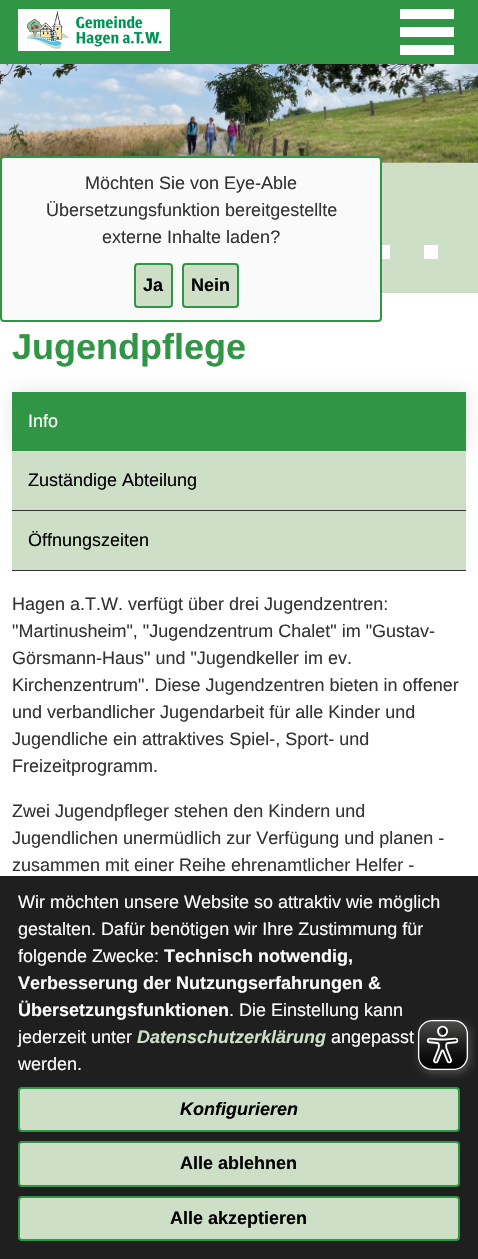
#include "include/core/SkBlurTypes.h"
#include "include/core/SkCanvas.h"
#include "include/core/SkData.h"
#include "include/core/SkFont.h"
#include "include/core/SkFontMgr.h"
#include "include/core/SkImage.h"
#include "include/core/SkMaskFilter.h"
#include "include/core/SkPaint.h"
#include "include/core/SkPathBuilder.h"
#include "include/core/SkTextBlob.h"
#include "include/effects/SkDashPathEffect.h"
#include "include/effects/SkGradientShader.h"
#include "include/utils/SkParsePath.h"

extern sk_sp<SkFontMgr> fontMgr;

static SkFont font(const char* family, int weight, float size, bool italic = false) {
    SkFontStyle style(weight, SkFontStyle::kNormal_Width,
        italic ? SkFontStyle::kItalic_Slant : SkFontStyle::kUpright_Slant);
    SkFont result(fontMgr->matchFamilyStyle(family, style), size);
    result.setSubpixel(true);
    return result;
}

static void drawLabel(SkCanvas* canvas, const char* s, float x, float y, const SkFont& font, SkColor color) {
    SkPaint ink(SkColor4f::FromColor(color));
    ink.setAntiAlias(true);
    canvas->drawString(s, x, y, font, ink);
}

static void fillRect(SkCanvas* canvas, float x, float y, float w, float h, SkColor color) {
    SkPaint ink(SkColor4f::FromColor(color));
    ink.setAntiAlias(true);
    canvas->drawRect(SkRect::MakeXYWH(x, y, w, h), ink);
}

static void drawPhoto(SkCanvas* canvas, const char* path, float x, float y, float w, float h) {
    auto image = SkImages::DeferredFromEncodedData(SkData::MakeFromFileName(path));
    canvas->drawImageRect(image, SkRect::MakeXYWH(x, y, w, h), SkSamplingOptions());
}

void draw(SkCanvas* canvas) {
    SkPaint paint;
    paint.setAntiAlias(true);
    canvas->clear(0xFFFFFFFF);
    drawPhoto(canvas, "assets/img2.png", 0, 64, 478, 99);
    fillRect(canvas, 382, 163, 96, 130, 0xFFCEDFC8);
    fillRect(canvas, 382, 245, 8, 14, 0xFFFFFFFF);
    paint.setStroke(true);
    paint.setStrokeWidth(1);
    paint.setColor(0xFFCEDFC8);
    canvas->drawRect(SkRect::MakeXYWH(375.5f, 244.5f, 15, 15), paint);
    paint.setStroke(false);
    paint.setColor(0xFFFAFAFA);
    canvas->drawRoundRect(SkRect::MakeXYWH(1, 157, 380, 164), 3, 3, paint);
    paint.setStroke(true);
    paint.setStrokeWidth(2);
    paint.setColor(0xFF309545);
    canvas->drawRoundRect(SkRect::MakeXYWH(1, 157, 380, 164), 3, 3, paint);
    SkFont font1 = font("Liberation Sans", 400, 18);
    drawLabel(canvas, "Möchten Sie von Eye-Able", 85, 189, font1, 0xFF333333);
    drawLabel(canvas, "Übersetzungsfunktion bereitgestellte", 46, 216, font1, 0xFF333333);
    drawLabel(canvas, "externe Inhalte laden?", 102, 243, font1, 0xFF333333);
    paint.setStroke(false);
    paint.setColor(0xFFCEDFC8);
    canvas->drawRoundRect(SkRect::MakeXYWH(135, 264, 37, 43), 3, 3, paint);
    paint.setStroke(true);
    paint.setColor(0xFF309545);
    canvas->drawRoundRect(SkRect::MakeXYWH(135, 264, 37, 43), 3, 3, paint);
    SkFont font2 = font("Liberation Sans", 700, 18);
    drawLabel(canvas, "Ja", 143, 291, font2, 0xFF000000);
    paint.setStroke(false);
    paint.setColor(0xFFCEDFC8);
    canvas->drawRoundRect(SkRect::MakeXYWH(183, 264, 55, 43), 3, 3, paint);
    paint.setStroke(true);
    paint.setColor(0xFF309545);
    canvas->drawRoundRect(SkRect::MakeXYWH(183, 264, 55, 43), 3, 3, paint);
    drawLabel(canvas, "Nein", 191, 291, font2, 0xFF000000);
    fillRect(canvas, 0, 0, 478, 64, 0xFF309545);
    fillRect(canvas, 400, 27, 54, 10, 0xFFFFFFFF);
    fillRect(canvas, 400, 9, 54, 10, 0xFFFFFFFF);
    fillRect(canvas, 400, 45, 54, 10, 0xFFFFFFFF);
    drawPhoto(canvas, "assets/img1.png", 18, 9, 152, 42);
    fillRect(canvas, 424, 245, 14, 14, 0xFFFFFFFF);
    SkFont font3 = font("Liberation Sans", 700, 36);
    drawLabel(canvas, "Jugendpflege", 12, 359, font3, 0xFF309545);
    paint.setStroke(false);
    paint.setColor(0x1A000000);
    paint.setMaskFilter(SkMaskFilter::MakeBlur(kNormal_SkBlurStyle, 10));
    canvas->drawRect(SkRect::MakeXYWH(12, 392, 454, 59), paint);
    paint.setMaskFilter(nullptr);
    fillRect(canvas, 12, 392, 454, 59, 0xFF309545);
    drawLabel(canvas, "Info", 28, 427, font1, 0xFFFFFFFF);
    fillRect(canvas, 12, 451, 454, 59, 0xFFCEDFC8);
    fillRect(canvas, 12, 510, 454, 1, 0xFF333333);
    drawLabel(canvas, "Zuständige Abteilung", 28, 486, font1, 0xFF000000);
    fillRect(canvas, 12, 511, 454, 59, 0xFFCEDFC8);
    fillRect(canvas, 12, 570, 454, 1, 0xFF333333);
    drawLabel(canvas, "Öffnungszeiten", 28, 546, font1, 0xFF000000);
    drawLabel(canvas, "Hagen a.T.W. verfügt über drei Jugendzentren:", 12, 610, font1, 0xFF333333);
    drawLabel(canvas, "\"Martinusheim\", \"Jugendzentrum Chalet\" im \"Gustav-", 12, 637, font1, 0xFF333333);
    drawLabel(canvas, "Görsmann-Haus\" und \"Jugendkeller im ev.", 12, 664, font1, 0xFF333333);
    drawLabel(canvas, "Kirchenzentrum\". Diese Jugendzentren bieten in offener", 12, 691, font1, 0xFF333333);
    drawLabel(canvas, "und verbandlicher Jugendarbeit für alle Kinder und", 12, 718, font1, 0xFF333333);
    drawLabel(canvas, "Jugendliche ein attraktives Spiel-, Sport- und", 12, 745, font1, 0xFF333333);
    drawLabel(canvas, "Freizeitprogramm.", 12, 772, font1, 0xFF333333);
    drawLabel(canvas, "Zwei Jugendpfleger stehen den Kindern und", 12, 817, font1, 0xFF333333);
    drawLabel(canvas, "Jugendlichen unermüdlich zur Verfügung und planen -", 12, 844, font1, 0xFF333333);
    drawLabel(canvas, "zusammen mit einer Reihe ehrenamtlicher Helfer -", 12, 871, font1, 0xFF333333);
    fillRect(canvas, 0, 876, 478, 383, 0xFF1F1F1F);
    drawLabel(canvas, "Wir möchten unsere Website so attraktiv wie möglich", 18, 908, font1, 0xFFFFFFFF);
    drawLabel(canvas, "gestalten. Dafür benötigen wir Ihre Zustimmung für", 18, 935, font1, 0xFFFFFFFF);
    drawLabel(canvas, "folgende Zwecke:", 18, 962, font1, 0xFFFFFFFF);
    drawLabel(canvas, "Technisch notwendig,", 164, 962, font2, 0xFFFFFFFF);
    drawLabel(canvas, "Verbesserung der Nutzungserfahrungen &", 18, 989, font2, 0xFFFFFFFF);
    drawLabel(canvas, "Übersetzungsfunktionen", 18, 1016, font2, 0xFFFFFFFF);
    drawLabel(canvas, ". Die Einstellung kann", 229, 1016, font1, 0xFFFFFFFF);
    drawLabel(canvas, "jederzeit unter", 18, 1043, font1, 0xFFFFFFFF);
    SkFont font4 = font("Liberation Sans", 700, 18, true);
    drawLabel(canvas, "Datenschutzerklärung", 137, 1043, font4, 0xFFCEDFC8);
    drawLabel(canvas, "angepasst", 331, 1043, font1, 0xFFFFFFFF);
    drawLabel(canvas, "werden.", 18, 1070, font1, 0xFFFFFFFF);
    paint.setColor(0xFFCEDFC8);
    canvas->drawRoundRect(SkRect::MakeXYWH(19, 1088, 440, 43), 3, 3, paint);
    paint.setStroke(true);
    paint.setColor(0xFF309545);
    canvas->drawRoundRect(SkRect::MakeXYWH(19, 1088, 440, 43), 3, 3, paint);
    drawLabel(canvas, "Konfigurieren", 180, 1115, font4, 0xFF000000);
    paint.setStroke(false);
    paint.setColor(0xFFCEDFC8);
    canvas->drawRoundRect(SkRect::MakeXYWH(19, 1142, 440, 44), 3, 3, paint);
    paint.setStroke(true);
    paint.setColor(0xFF309545);
    canvas->drawRoundRect(SkRect::MakeXYWH(19, 1142, 440, 44), 3, 3, paint);
    drawLabel(canvas, "Alle ablehnen", 180, 1169, font2, 0xFF000000);
    paint.setStroke(false);
    paint.setColor(0xFFCEDFC8);
    canvas->drawRoundRect(SkRect::MakeXYWH(19, 1197, 440, 43), 3, 3, paint);
    paint.setStroke(true);
    paint.setColor(0xFF309545);
    canvas->drawRoundRect(SkRect::MakeXYWH(19, 1197, 440, 43), 3, 3, paint);
    drawLabel(canvas, "Alle akzeptieren", 170, 1224, font2, 0xFF000000);
    drawPhoto(canvas, "assets/img3.png", 412, 1017, 64, 62);
}
